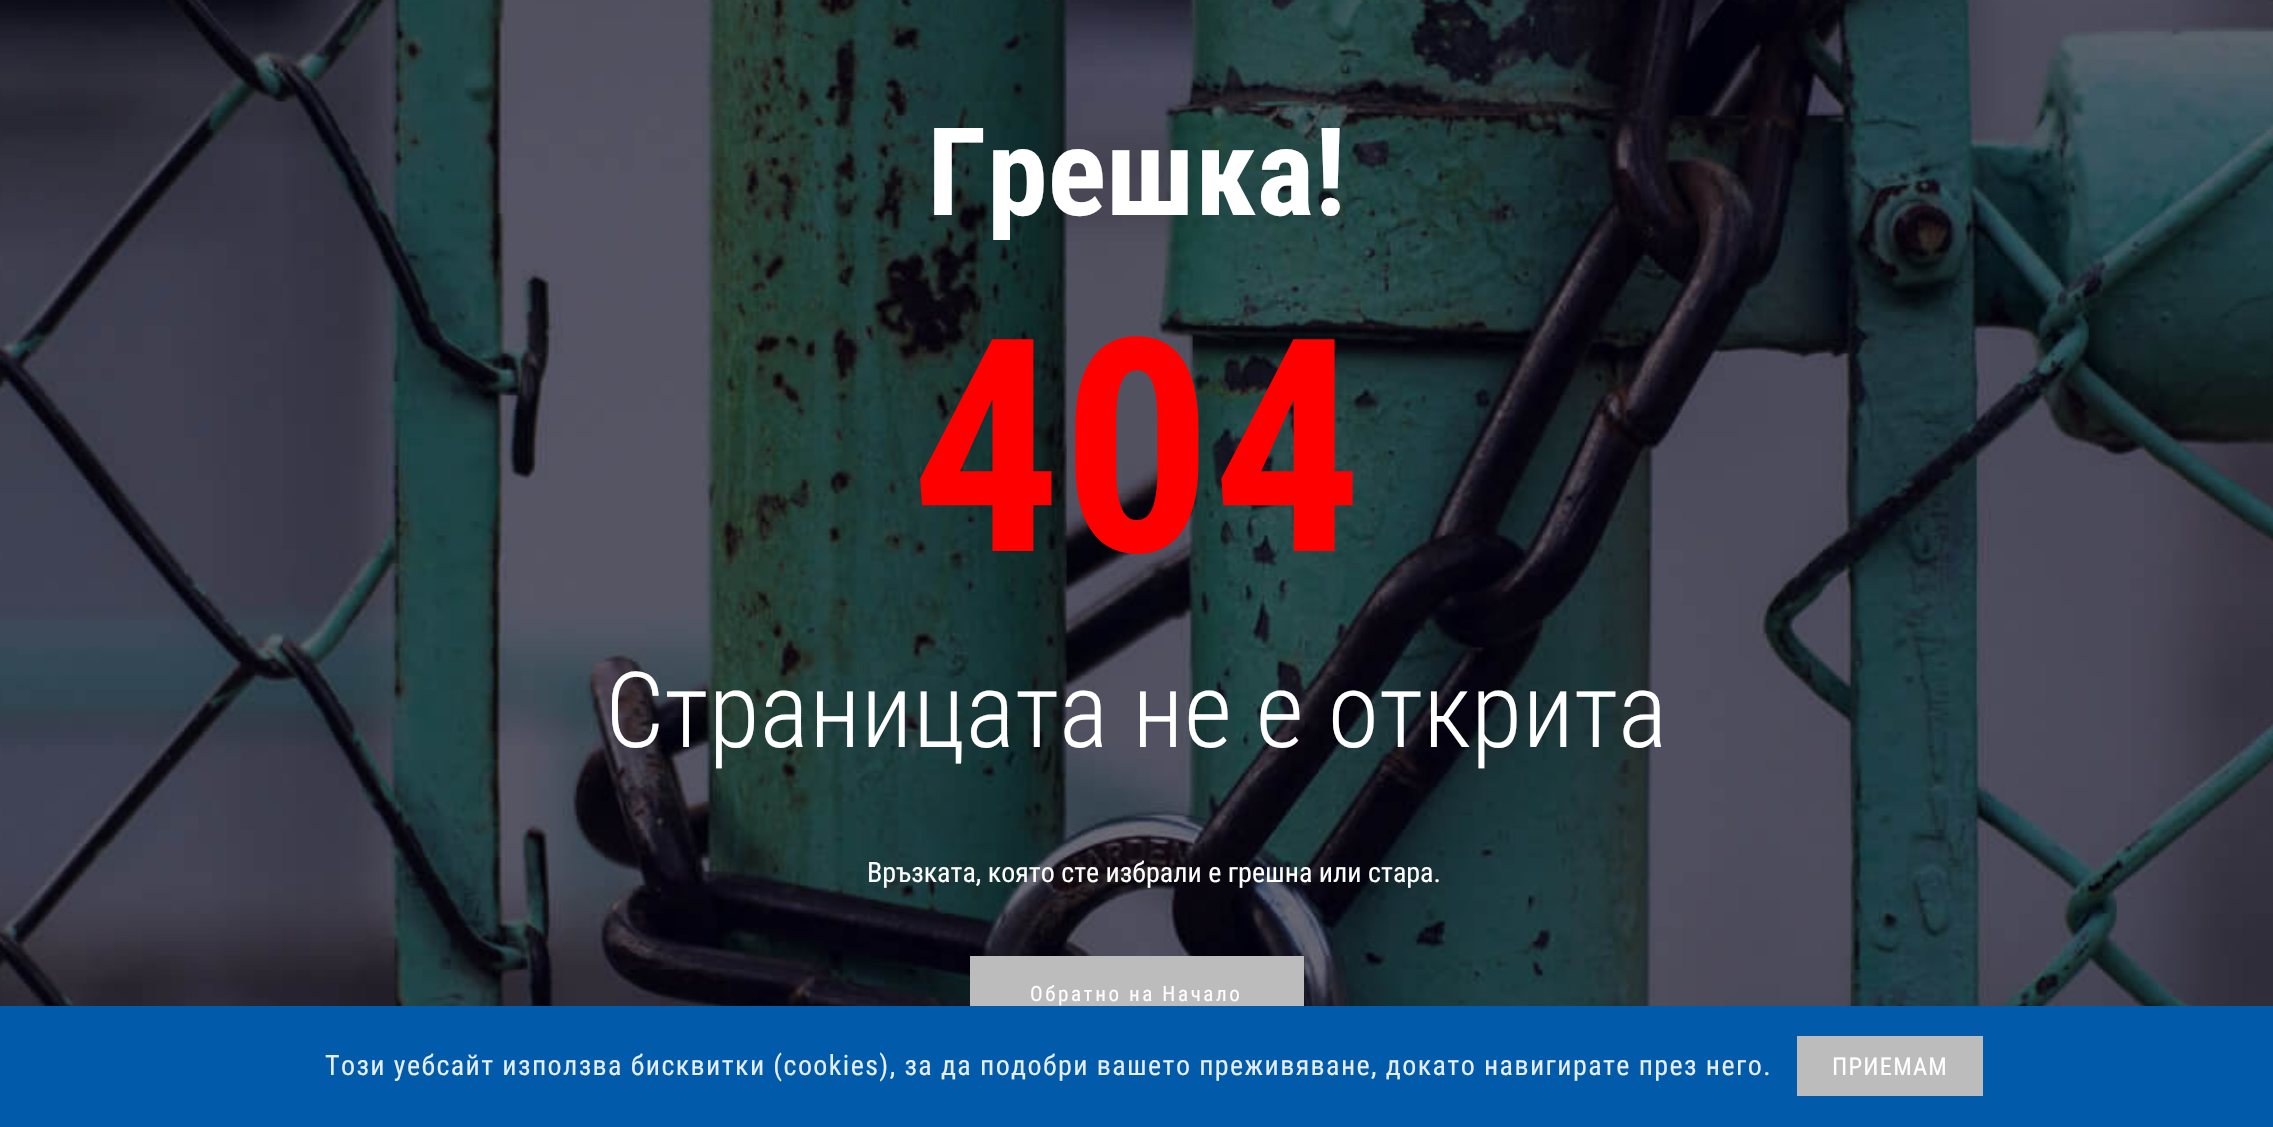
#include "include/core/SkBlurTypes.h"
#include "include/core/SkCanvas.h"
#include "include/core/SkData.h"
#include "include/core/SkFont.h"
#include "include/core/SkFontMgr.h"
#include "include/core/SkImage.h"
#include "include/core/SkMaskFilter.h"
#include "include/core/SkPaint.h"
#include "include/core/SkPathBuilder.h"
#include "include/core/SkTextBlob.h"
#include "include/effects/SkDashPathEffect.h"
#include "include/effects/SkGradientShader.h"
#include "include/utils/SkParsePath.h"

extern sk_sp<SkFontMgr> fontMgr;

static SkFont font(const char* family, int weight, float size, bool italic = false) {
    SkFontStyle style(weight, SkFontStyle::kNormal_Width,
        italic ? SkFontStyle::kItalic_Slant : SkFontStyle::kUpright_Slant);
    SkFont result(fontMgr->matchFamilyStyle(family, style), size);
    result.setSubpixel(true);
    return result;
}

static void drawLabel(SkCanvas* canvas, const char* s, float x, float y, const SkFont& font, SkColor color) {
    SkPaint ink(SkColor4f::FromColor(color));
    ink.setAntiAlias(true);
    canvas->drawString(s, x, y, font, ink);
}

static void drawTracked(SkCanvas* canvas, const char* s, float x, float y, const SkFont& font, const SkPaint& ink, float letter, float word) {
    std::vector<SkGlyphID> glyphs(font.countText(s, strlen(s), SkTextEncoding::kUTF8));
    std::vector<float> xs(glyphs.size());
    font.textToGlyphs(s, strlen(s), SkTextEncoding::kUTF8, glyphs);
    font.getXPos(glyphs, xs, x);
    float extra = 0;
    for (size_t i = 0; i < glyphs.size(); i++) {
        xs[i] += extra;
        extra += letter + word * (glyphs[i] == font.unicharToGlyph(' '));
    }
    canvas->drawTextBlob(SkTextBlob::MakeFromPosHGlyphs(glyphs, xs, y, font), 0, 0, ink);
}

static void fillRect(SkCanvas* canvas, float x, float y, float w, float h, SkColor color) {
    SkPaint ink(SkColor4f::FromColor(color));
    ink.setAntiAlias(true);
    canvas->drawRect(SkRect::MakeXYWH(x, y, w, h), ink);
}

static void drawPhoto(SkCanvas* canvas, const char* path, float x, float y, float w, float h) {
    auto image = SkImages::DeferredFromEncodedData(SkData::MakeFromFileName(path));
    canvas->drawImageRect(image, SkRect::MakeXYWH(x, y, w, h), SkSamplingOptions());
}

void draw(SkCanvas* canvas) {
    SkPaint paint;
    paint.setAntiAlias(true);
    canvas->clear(0xFFFFFFFF);
    drawPhoto(canvas, "assets/img1.png", 0, 0, 2273, 1006);
    SkFont font1 = font("Roboto Condensed", 700, 122.5f);
    drawLabel(canvas, "Грешка!", 927, 215, font1, 0xFFFFFFFF);
    SkFont font2 = font("Roboto Condensed", 700, 298);
    drawLabel(canvas, "404", 911, 551, font2, 0xFFFF0000);
    SkFont font3 = font("Roboto Condensed", 300, 105);
    drawLabel(canvas, "Страницата не е открита", 605, 747, font3, 0xFFFFFFFF);
    SkFont font4 = font("Roboto Condensed", 400, 28);
    drawLabel(canvas, "Връзката, която сте избрали е грешна или стара.", 867, 882, font4, 0xFFFFFFFF);
    fillRect(canvas, 970, 956, 334, 50, 0xFFBCBCBC);
    SkFont font5 = font("Roboto Condensed", 400, 21);
    paint.setColor(0xFFFFFFFF);
    drawTracked(canvas, "Обратно на Начало", 1030, 1001, font5, paint, 2.6f, 0);
    fillRect(canvas, 0, 1006, 2273, 121, 0xFF015BAA);
    paint.setColor(0xFFE6EFF7);
    drawTracked(canvas, "Този уебсайт използва бисквитки (cookies), за да подобри вашето преживяване, докато навигирате през него.", 325, 1075, font4, paint, 1.4f, 0);
    fillRect(canvas, 1797, 1036, 186, 60, 0xFFBCBCBC);
    SkFont font6 = font("Roboto Condensed", 400, 24.5f);
    paint.setColor(0xFFFFFFFF);
    drawTracked(canvas, "ПРИЕМАМ", 1832, 1075, font6, paint, 1.25f, 0);
}
